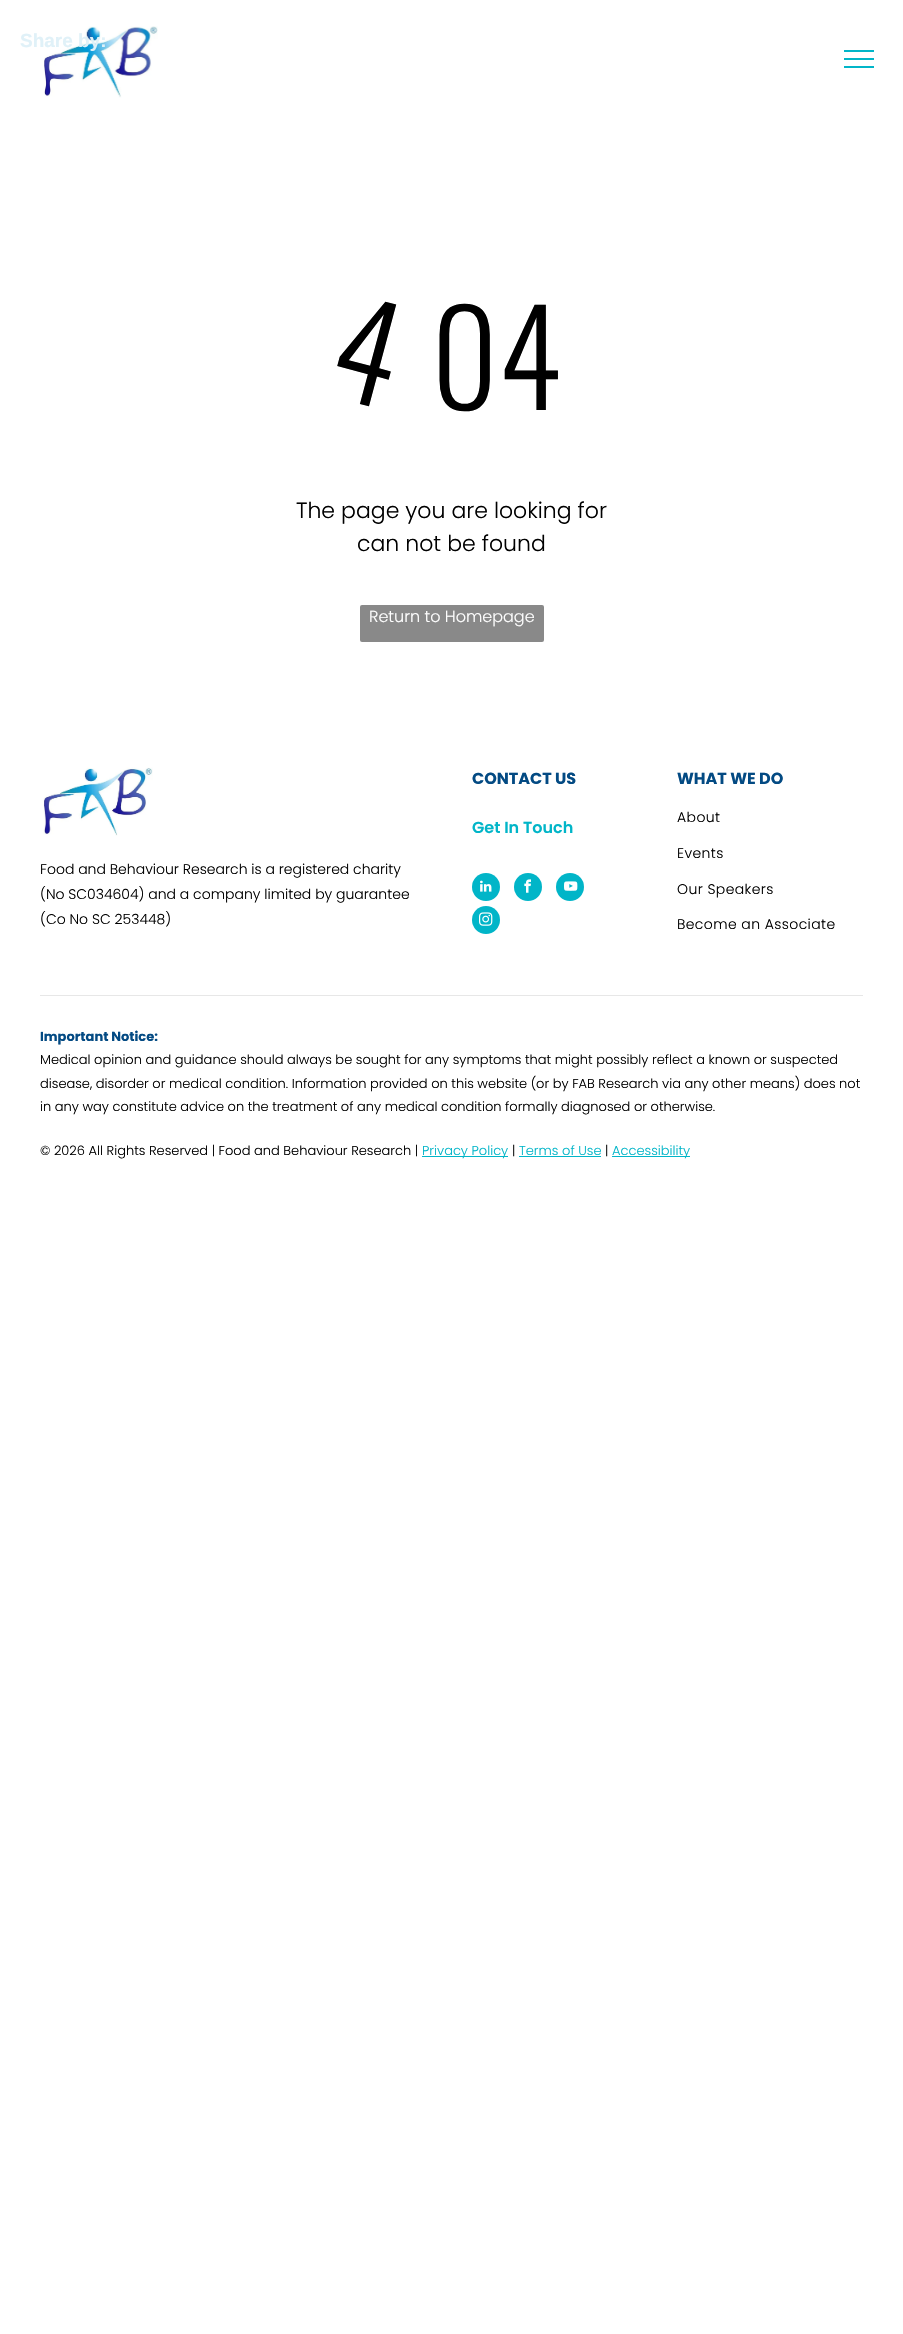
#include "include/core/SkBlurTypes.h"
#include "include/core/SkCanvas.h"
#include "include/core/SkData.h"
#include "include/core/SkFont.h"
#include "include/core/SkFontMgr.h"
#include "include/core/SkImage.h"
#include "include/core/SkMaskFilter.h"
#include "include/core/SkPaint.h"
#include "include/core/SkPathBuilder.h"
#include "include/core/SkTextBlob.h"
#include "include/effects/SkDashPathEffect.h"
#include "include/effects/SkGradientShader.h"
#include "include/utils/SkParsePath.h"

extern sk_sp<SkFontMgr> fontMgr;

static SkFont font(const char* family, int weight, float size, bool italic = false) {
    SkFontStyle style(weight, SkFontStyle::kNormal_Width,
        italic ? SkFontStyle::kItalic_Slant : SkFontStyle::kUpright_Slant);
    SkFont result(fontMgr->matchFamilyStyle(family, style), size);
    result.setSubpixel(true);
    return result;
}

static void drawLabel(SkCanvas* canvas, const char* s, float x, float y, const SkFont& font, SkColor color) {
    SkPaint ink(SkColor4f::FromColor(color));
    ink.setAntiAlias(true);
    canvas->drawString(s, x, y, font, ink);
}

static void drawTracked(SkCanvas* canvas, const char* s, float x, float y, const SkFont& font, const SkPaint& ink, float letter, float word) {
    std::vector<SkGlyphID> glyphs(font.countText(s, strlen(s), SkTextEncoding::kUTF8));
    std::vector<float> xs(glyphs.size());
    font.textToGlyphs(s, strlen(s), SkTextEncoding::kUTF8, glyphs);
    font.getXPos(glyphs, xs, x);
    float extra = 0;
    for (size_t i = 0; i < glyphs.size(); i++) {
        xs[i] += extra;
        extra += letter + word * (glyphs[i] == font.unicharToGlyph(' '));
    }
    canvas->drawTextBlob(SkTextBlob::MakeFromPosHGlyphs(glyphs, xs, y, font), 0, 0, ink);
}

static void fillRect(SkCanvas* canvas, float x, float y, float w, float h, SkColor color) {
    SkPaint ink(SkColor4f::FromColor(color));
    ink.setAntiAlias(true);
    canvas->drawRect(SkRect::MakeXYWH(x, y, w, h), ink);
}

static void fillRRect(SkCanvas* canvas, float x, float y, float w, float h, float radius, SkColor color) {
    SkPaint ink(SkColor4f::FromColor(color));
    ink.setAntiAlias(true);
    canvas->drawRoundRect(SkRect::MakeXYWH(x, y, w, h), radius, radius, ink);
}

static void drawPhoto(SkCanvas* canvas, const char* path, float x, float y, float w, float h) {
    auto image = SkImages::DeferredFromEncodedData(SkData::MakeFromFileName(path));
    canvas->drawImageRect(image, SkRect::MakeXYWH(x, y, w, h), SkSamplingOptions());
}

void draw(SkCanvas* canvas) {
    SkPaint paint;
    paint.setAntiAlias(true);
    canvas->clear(0xFFFFFFFF);
    drawPhoto(canvas, "assets/img1.png", 44, 26, 114, 72);
    SkFont font1 = font("Liberation Sans", 700, 19);
    drawLabel(canvas, "Share by:", 20, 47, font1, 0xFFE0F1F8);
    fillRect(canvas, 844, 50, 30, 2, 0xFF01B5C8);
    fillRect(canvas, 844, 58, 30, 2, 0xFF01B5C8);
    fillRect(canvas, 844, 66, 30, 2, 0xFF01B5C8);
    SkFont font2 = font("Oswald", 300, 130);
    canvas->save();
    canvas->rotate(15, 323, 394);
    drawLabel(canvas, "4", 323, 394, font2, 0xFF000000);
    canvas->restore();
    drawLabel(canvas, "04", 431, 410, font2, 0xFF000000);
    SkFont font3 = font("Poppins", 300, 22);
    drawLabel(canvas, "The page you are looking for", 296, 518, font3, 0xFF000000);
    drawLabel(canvas, "can not be found", 357, 551, font3, 0xFF000000);
    fillRRect(canvas, 360, 605, 184, 37, 2, 0xFF898989);
    SkFont font4 = font("Poppins", 300, 16);
    drawLabel(canvas, "Return to Homepage", 369, 622, font4, 0xFFFFFFFF);
    drawPhoto(canvas, "assets/img2.png", 43, 767, 110, 69);
    SkFont font5 = font("Poppins", 300, 14);
    drawLabel(canvas, "Food and Behaviour Research is a registered charity", 40, 874, font5, 0xFF000000);
    drawLabel(canvas, "(No SC034604) and a company limited by guarantee", 40, 899, font5, 0xFF000000);
    drawLabel(canvas, "(Co No SC 253448)", 40, 924, font5, 0xFF000000);
    SkFont font6 = font("Poppins", 700, 16);
    drawLabel(canvas, "CONTACT US", 472, 784, font6, 0xFF034A83);
    SkFont font7 = font("Poppins", 600, 16);
    drawLabel(canvas, "Get In Touch", 472, 833, font7, 0xFF01B5C8);
    paint.setColor(0xFF01B5C8);
    canvas->drawCircle(486, 887, 14, paint);
    drawPhoto(canvas, "assets/img3.png", 480, 880, 12, 12);
    canvas->drawCircle(528, 887, 14, paint);
    drawPhoto(canvas, "assets/img4.png", 524, 879, 7, 14);
    canvas->drawCircle(570, 887, 14, paint);
    drawPhoto(canvas, "assets/img5.png", 564, 881, 14, 10);
    canvas->drawCircle(486, 920, 14, paint);
    drawPhoto(canvas, "assets/img6.png", 479, 912, 14, 14);
    drawLabel(canvas, "WHAT WE DO", 677, 784, font6, 0xFF034A83);
    paint.setColor(0xFF000000);
    drawTracked(canvas, "About", 677, 822, font5, paint, 0.4f, 0);
    drawTracked(canvas, "Events", 677, 858, font5, paint, 0.4f, 0);
    drawTracked(canvas, "Our Speakers", 677, 894, font5, paint, 0.4f, 0);
    drawTracked(canvas, "Become an Associate", 677, 929, font5, paint, 0.4f, 0);
    fillRect(canvas, 40, 995, 823, 1, 0xFFE7E7E7);
    SkFont font8 = font("Poppins", 700, 13);
    drawLabel(canvas, "Important Notice:", 40, 1041, font8, 0xFF034A83);
    SkFont font9 = font("Poppins", 300, 13);
    drawLabel(canvas, "Medical opinion and guidance should always be sought for any symptoms that might possibly reflect a known or suspected", 40, 1064, font9, 0xFF000000);
    drawLabel(canvas, "disease, disorder or medical condition. Information provided on this website (or by FAB Research via any other means) does not", 40, 1088, font9, 0xFF000000);
    drawLabel(canvas, "in any way constitute advice on the treatment of any medical condition formally diagnosed or otherwise.", 40, 1111, font9, 0xFF000000);
    drawLabel(canvas, "© 2026 All Rights Reserved | Food and Behaviour Research |", 40, 1155, font9, 0xFF000000);
    fillRect(canvas, 422, 1156, 86, 1, 0xFF01B5C8);
    drawLabel(canvas, "Privacy Policy", 422, 1155, font9, 0xFF01B5C8);
    drawLabel(canvas, "|", 512, 1155, font9, 0xFF000000);
    drawLabel(canvas, "Terms of Use", 519, 1155, font9, 0xFF01B5C8);
    fillRect(canvas, 519, 1156, 82, 1, 0xFF01B5C8);
    drawLabel(canvas, "|", 605, 1155, font9, 0xFF000000);
    fillRect(canvas, 612, 1156, 78, 1, 0xFF01B5C8);
    drawLabel(canvas, "Accessibility", 612, 1155, font9, 0xFF01B5C8);
}
